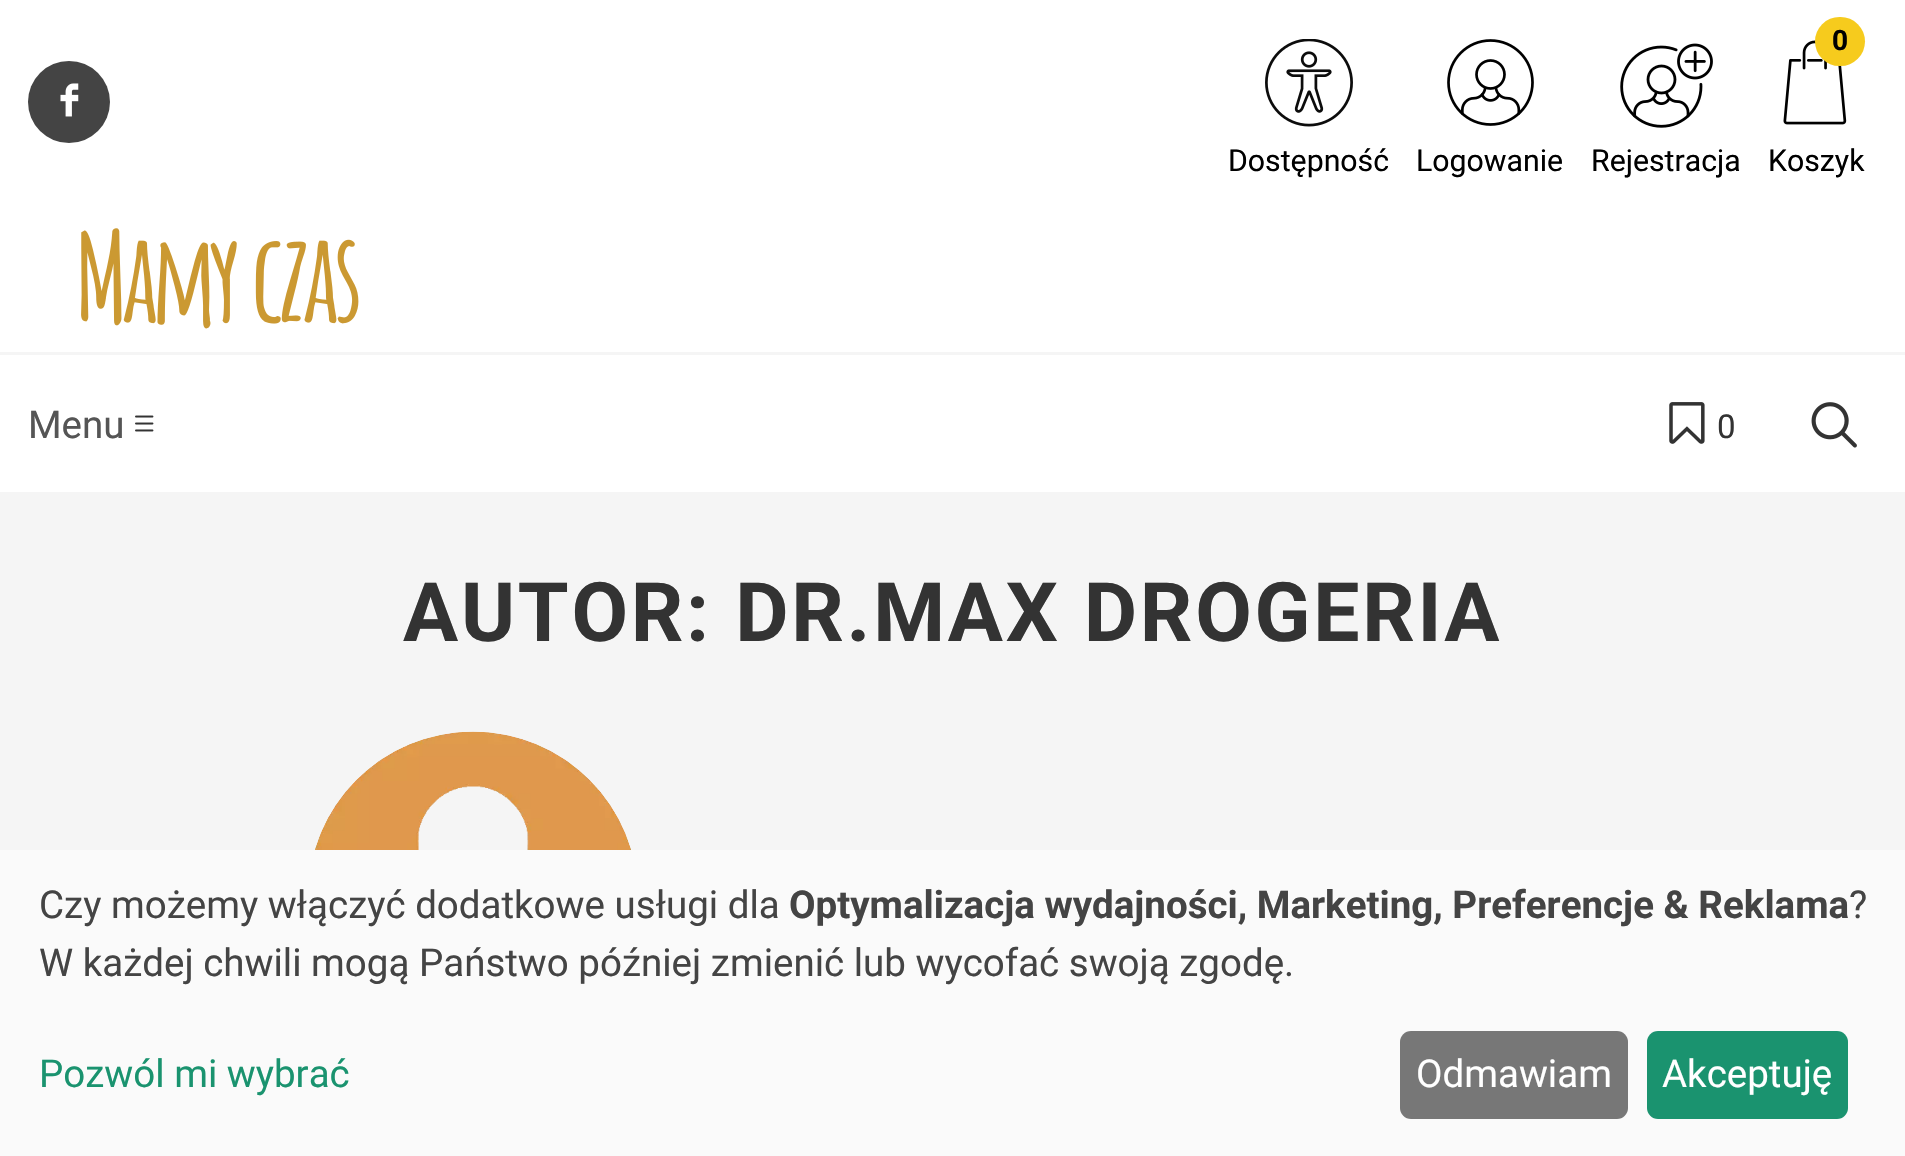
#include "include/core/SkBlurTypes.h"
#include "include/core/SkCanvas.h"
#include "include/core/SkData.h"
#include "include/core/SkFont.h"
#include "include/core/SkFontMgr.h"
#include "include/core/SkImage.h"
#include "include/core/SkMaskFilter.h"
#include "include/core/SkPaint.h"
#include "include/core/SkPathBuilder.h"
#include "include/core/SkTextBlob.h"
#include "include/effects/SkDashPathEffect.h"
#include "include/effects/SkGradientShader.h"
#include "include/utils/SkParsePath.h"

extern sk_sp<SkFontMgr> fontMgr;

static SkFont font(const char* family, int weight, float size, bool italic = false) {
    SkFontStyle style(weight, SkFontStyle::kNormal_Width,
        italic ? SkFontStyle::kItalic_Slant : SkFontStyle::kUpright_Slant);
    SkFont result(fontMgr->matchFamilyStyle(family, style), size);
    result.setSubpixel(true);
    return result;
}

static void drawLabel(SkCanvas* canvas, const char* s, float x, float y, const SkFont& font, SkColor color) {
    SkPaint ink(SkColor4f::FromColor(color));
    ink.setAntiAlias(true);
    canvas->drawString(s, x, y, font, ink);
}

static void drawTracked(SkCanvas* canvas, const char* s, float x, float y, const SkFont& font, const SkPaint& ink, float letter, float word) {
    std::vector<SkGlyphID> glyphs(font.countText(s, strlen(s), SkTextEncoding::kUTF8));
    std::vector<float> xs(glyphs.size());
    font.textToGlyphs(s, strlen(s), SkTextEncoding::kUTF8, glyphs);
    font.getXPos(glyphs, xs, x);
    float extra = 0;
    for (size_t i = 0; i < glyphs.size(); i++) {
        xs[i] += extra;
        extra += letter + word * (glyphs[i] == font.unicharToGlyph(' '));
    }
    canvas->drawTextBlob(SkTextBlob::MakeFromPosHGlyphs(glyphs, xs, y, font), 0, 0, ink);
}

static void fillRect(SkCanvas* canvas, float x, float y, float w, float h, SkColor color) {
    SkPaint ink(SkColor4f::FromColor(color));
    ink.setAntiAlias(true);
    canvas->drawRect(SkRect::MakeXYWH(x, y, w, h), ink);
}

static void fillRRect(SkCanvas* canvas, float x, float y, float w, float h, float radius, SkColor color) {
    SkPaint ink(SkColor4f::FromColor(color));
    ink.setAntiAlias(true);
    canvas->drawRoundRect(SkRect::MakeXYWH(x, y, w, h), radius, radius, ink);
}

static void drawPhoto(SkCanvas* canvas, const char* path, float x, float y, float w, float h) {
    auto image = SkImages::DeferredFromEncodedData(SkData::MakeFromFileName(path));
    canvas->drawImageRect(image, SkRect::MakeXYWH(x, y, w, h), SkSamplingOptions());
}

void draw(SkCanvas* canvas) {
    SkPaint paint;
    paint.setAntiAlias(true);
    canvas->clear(0xFFFFFFFF);
    fillRect(canvas, 0, 492, 1905, 358, 0xFFF5F5F5);
    paint.setColor(0xFF444444);
    canvas->drawCircle(69, 102, 41, paint);
    drawPhoto(canvas, "assets/img1.png", 60, 83, 19, 34);
    drawPhoto(canvas, "assets/img2.png", 1265, 39, 88, 88);
    SkFont font1 = font("Roboto", 400, 30.25f);
    drawLabel(canvas, "Dostępność", 1228, 171, font1, 0xFF000000);
    drawPhoto(canvas, "assets/img3.png", 1447, 39, 87, 87);
    drawLabel(canvas, "Logowanie", 1416, 171, font1, 0xFF000000);
    drawPhoto(canvas, "assets/img4.png", 1620, 43, 93, 85);
    drawLabel(canvas, "Rejestracja", 1591, 171, font1, 0xFF000000);
    drawPhoto(canvas, "assets/img5.png", 1783, 40, 64, 85);
    fillRRect(canvas, 1815, 17, 50, 49, 24.5f, 0xFFF6CB1D);
    SkFont font2 = font("Roboto", 700, 28);
    drawLabel(canvas, "0", 1832, 50, font2, 0xFF000000);
    drawLabel(canvas, "Koszyk", 1768, 171, font1, 0xFF000000);
    drawPhoto(canvas, "assets/img6.png", 81, 228, 278, 101);
    fillRect(canvas, 0, 352, 1905, 3, 0xFFF5F5F5);
    SkFont font3 = font("Roboto", 400, 38.5f);
    drawLabel(canvas, "Menu", 28, 438, font3, 0xFF555555);
    drawPhoto(canvas, "assets/img7.png", 135, 415, 19, 17);
    drawPhoto(canvas, "assets/img8.png", 1669, 402, 36, 42);
    SkFont font4 = font("Roboto", 400, 33);
    drawLabel(canvas, "0", 1717, 438, font4, 0xFF333333);
    drawPhoto(canvas, "assets/img9.png", 1811, 402, 46, 46);
    SkFont font5 = font("Roboto", 700, 82.1f);
    paint.setColor(0xFF333333);
    drawTracked(canvas, "AUTOR: DR.MAX DROGERIA", 403, 641, font5, paint, 2.75f, 0);
    drawPhoto(canvas, "assets/img10.png", 315, 731, 316, 119);
    fillRect(canvas, 0, 850, 1905, 306, 0xFFFAFAFA);
    drawLabel(canvas, "Czy możemy włączyć dodatkowe usługi dla", 39, 918, font3, 0xFF444444);
    SkFont font6 = font("Roboto", 700, 38.5f);
    drawLabel(canvas, "Optymalizacja wydajności, Marketing, Preferencje & Reklama", 789, 918, font6, 0xFF444444);
    drawLabel(canvas, "?", 1849, 918, font3, 0xFF444444);
    drawLabel(canvas, "W każdej chwili mogą Państwo później zmienić lub wycofać swoją zgodę.", 39, 976, font3, 0xFF444444);
    drawLabel(canvas, "Pozwól mi wybrać", 39, 1087, font3, 0xFF1A936F);
    fillRRect(canvas, 1400, 1031, 228, 88, 11, 0xFF777777);
    drawLabel(canvas, "Odmawiam", 1416, 1087, font3, 0xFFFFFFFF);
    fillRRect(canvas, 1647, 1031, 201, 88, 11, 0xFF1A936F);
    drawLabel(canvas, "Akceptuję", 1662, 1087, font3, 0xFFFFFFFF);
}
